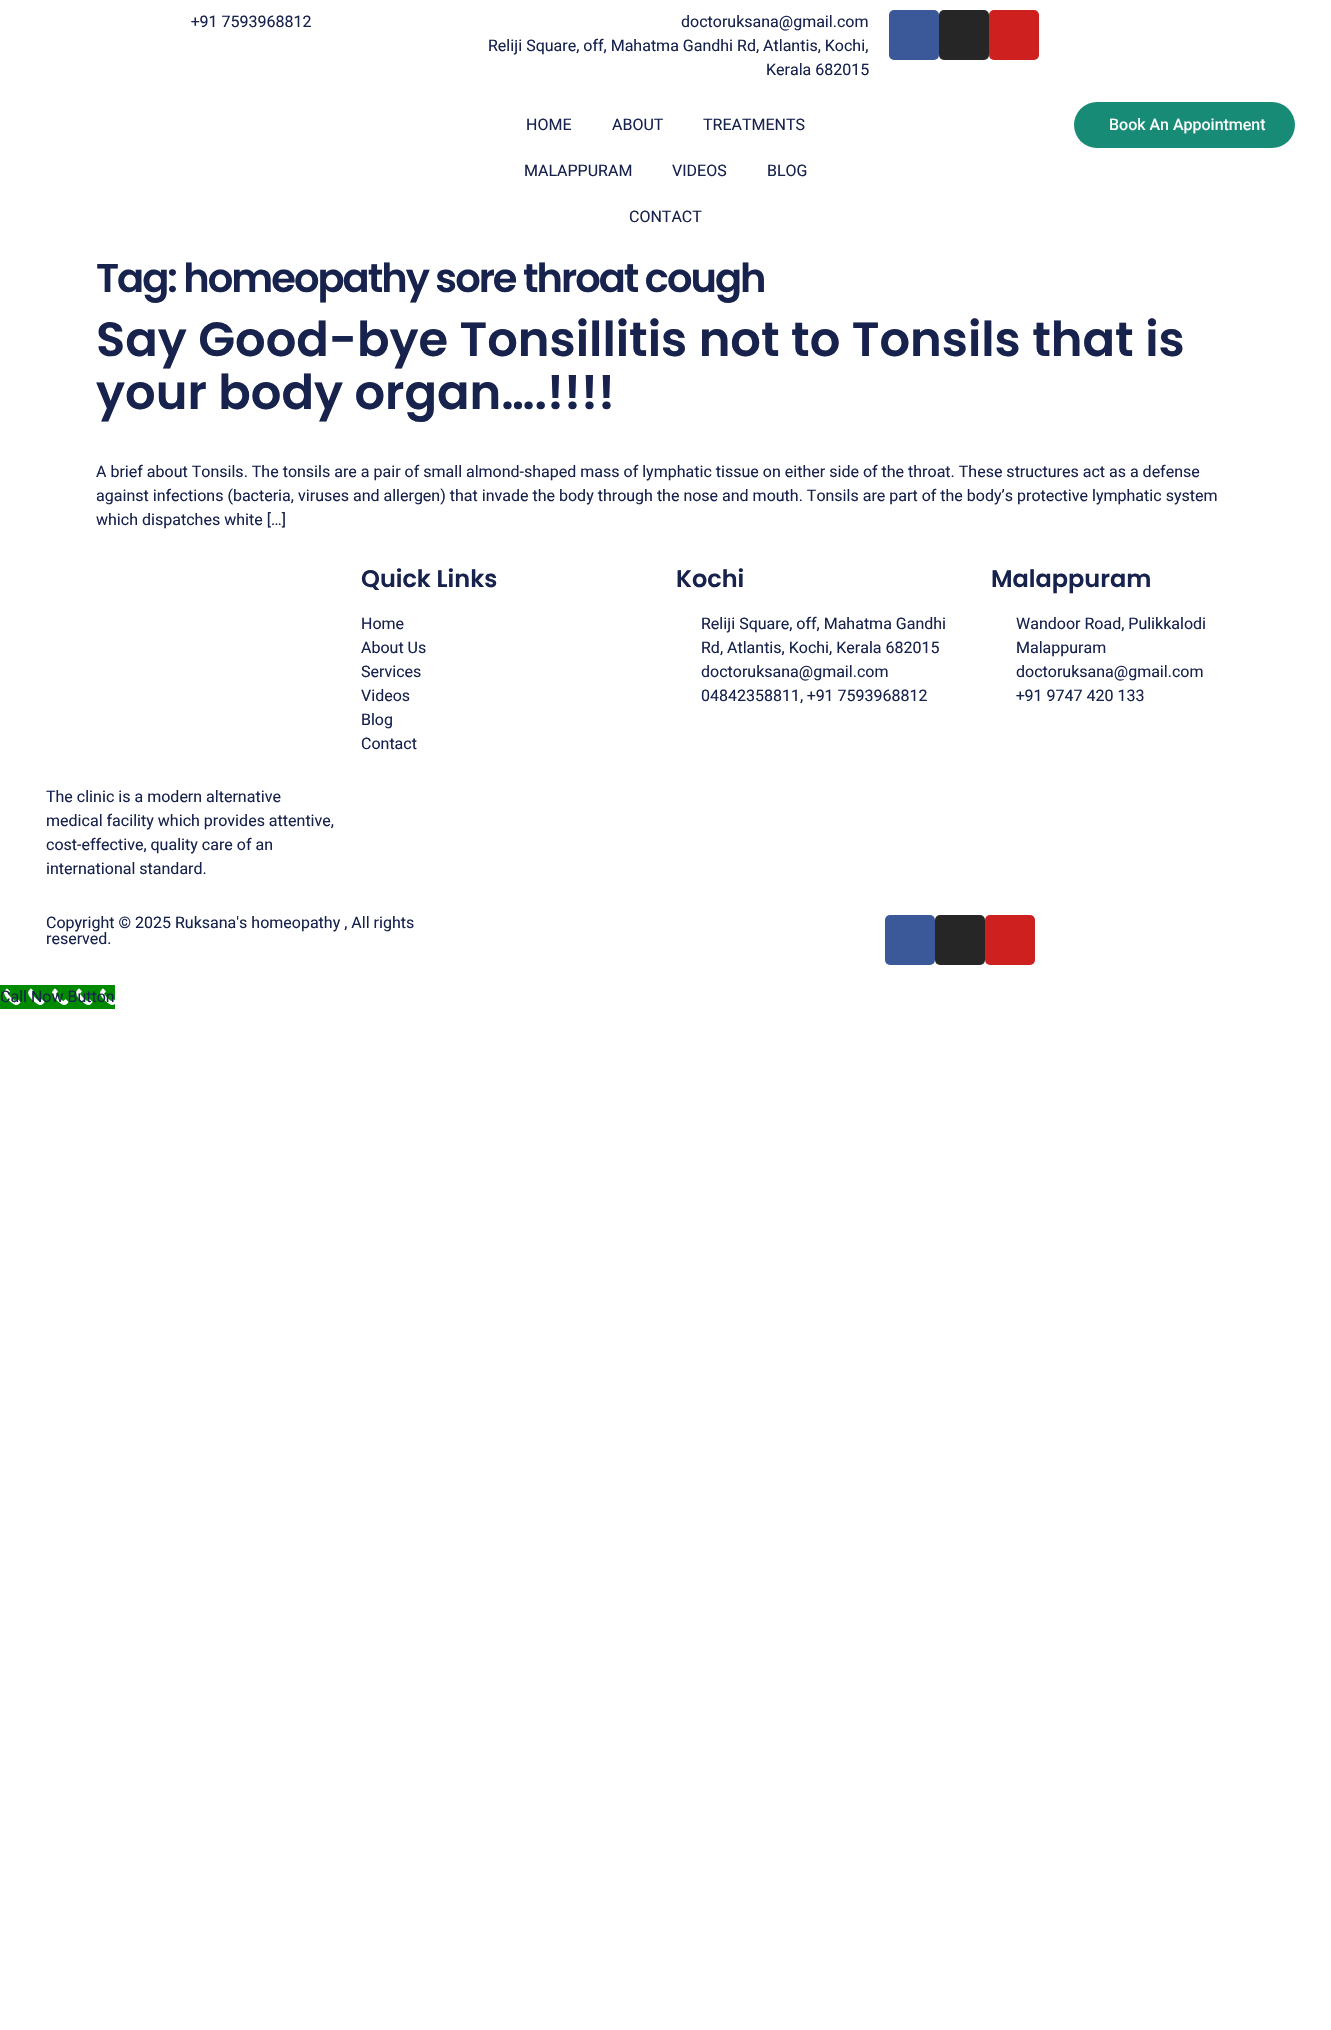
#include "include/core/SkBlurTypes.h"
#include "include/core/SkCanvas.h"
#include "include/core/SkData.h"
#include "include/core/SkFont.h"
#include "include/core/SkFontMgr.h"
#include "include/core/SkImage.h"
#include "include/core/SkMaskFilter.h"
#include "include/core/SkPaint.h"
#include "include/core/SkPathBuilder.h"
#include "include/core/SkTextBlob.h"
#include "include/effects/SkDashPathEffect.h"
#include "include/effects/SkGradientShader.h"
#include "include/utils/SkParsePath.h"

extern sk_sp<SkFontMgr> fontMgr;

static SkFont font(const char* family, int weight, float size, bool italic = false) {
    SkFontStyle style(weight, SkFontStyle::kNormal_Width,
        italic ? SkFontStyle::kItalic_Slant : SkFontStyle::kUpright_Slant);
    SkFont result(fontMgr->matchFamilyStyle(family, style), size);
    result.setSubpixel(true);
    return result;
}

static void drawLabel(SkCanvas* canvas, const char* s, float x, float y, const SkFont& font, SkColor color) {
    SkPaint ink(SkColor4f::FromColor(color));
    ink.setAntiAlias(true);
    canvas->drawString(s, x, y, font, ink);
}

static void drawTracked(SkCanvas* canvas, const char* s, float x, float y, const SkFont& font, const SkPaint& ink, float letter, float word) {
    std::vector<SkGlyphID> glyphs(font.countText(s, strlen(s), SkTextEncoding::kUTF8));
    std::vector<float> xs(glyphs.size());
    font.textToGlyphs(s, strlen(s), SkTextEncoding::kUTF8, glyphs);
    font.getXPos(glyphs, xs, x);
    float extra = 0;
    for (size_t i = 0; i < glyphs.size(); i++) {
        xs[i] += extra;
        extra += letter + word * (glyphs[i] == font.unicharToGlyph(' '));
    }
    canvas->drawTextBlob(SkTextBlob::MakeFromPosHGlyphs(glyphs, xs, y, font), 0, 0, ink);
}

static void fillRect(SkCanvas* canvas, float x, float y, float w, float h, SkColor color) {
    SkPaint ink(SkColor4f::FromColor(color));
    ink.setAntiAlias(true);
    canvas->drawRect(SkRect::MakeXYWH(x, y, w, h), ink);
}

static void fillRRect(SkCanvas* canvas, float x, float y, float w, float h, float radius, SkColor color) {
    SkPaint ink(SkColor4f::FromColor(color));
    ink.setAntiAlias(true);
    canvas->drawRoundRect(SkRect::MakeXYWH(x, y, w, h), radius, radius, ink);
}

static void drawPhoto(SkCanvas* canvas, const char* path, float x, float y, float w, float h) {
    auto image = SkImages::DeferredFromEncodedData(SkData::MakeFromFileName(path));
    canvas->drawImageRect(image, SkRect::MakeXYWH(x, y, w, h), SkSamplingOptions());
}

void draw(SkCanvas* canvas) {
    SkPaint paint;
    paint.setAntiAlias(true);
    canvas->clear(0xFFFFFFFF);
    SkFont font1 = font("Heebo", 400, 16);
    drawLabel(canvas, "+91 7593968812", 191, 27, font1, 0xFF17224D);
    drawLabel(canvas, "doctoruksana@gmail.com", 681, 27, font1, 0xFF17224D);
    drawLabel(canvas, "Reliji Square, off, Mahatma Gandhi Rd, Atlantis, Kochi,", 488, 51, font1, 0xFF17224D);
    drawLabel(canvas, "Kerala 682015", 766, 75, font1, 0xFF17224D);
    fillRRect(canvas, 889, 10, 50, 50, 5, 0xFF3B5998);
    fillRRect(canvas, 939, 10, 50, 50, 5, 0xFF262626);
    fillRRect(canvas, 989, 10, 50, 50, 5, 0xFFCD201F);
    drawLabel(canvas, "HOME", 526, 130, font1, 0xFF17224D);
    drawLabel(canvas, "ABOUT", 612, 130, font1, 0xFF17224D);
    drawLabel(canvas, "TREATMENTS", 703, 130, font1, 0xFF17224D);
    drawLabel(canvas, "MALAPPURAM", 524, 176, font1, 0xFF17224D);
    drawLabel(canvas, "VIDEOS", 672, 176, font1, 0xFF17224D);
    drawLabel(canvas, "BLOG", 767, 176, font1, 0xFF17224D);
    drawLabel(canvas, "CONTACT", 629, 222, font1, 0xFF17224D);
    fillRRect(canvas, 1074, 102, 221, 46, 23, 0xFF188B76);
    SkFont font2 = font("Heebo", 500, 16);
    drawLabel(canvas, "Book An Appointment", 1109, 130, font2, 0xFFFFFFFF);
    SkFont font3 = font("Poppins", 600, 40);
    paint.setColor(0xFF17224D);
    drawTracked(canvas, "Tag: homeopathy sore throat cough", 96, 292, font3, paint, -2, 0);
    SkFont font4 = font("Poppins", 600, 48);
    drawLabel(canvas, "Say Good-bye Tonsillitis not to Tonsils that is", 96, 356, font4, 0xFF17224D);
    drawLabel(canvas, "your body organ….!!!!", 96, 409, font4, 0xFF17224D);
    drawLabel(canvas, "A brief about Tonsils. The tonsils are a pair of small almond-shaped mass of lymphatic tissue on either side of the throat. These structures act as a defense", 96, 477, font1, 0xFF17224D);
    drawLabel(canvas, "against infections (bacteria, viruses and allergen) that invade the body through the nose and mouth. Tonsils are part of the body’s protective lymphatic system", 96, 501, font1, 0xFF17224D);
    drawLabel(canvas, "which dispatches white […]", 96, 525, font1, 0xFF17224D);
    SkFont font5 = font("Poppins", 600, 24);
    drawLabel(canvas, "Quick Links", 361, 587, font5, 0xFF17224D);
    drawLabel(canvas, "Home", 361, 629, font1, 0xFF17224D);
    drawLabel(canvas, "About Us", 361, 653, font1, 0xFF17224D);
    drawLabel(canvas, "Services", 361, 677, font1, 0xFF17224D);
    drawLabel(canvas, "Videos", 361, 701, font1, 0xFF17224D);
    drawLabel(canvas, "Blog", 361, 725, font1, 0xFF17224D);
    drawLabel(canvas, "Contact", 361, 749, font1, 0xFF17224D);
    drawLabel(canvas, "Kochi", 676, 587, font5, 0xFF17224D);
    drawLabel(canvas, "Reliji Square, off, Mahatma Gandhi", 701, 629, font1, 0xFF17224D);
    drawLabel(canvas, "Rd, Atlantis, Kochi, Kerala 682015", 701, 653, font1, 0xFF17224D);
    drawLabel(canvas, "doctoruksana@gmail.com", 701, 677, font1, 0xFF17224D);
    drawLabel(canvas, "04842358811, +91 7593968812", 701, 701, font1, 0xFF17224D);
    drawLabel(canvas, "Malappuram", 991, 587, font5, 0xFF17224D);
    drawLabel(canvas, "Wandoor Road, Pulikkalodi", 1016, 629, font1, 0xFF17224D);
    drawLabel(canvas, "Malappuram", 1016, 653, font1, 0xFF17224D);
    drawLabel(canvas, "doctoruksana@gmail.com", 1016, 677, font1, 0xFF17224D);
    drawLabel(canvas, "+91 9747 420 133", 1016, 701, font1, 0xFF17224D);
    drawLabel(canvas, "The clinic is a modern alternative", 46, 802, font1, 0xFF17224D);
    drawLabel(canvas, "medical facility which provides attentive,", 46, 826, font1, 0xFF17224D);
    drawLabel(canvas, "cost-effective, quality care of an", 46, 850, font1, 0xFF17224D);
    drawLabel(canvas, "international standard.", 46, 874, font1, 0xFF17224D);
    drawLabel(canvas, "Copyright © 2025 Ruksana's homeopathy , All rights", 46, 928, font1, 0xFF17224D);
    drawLabel(canvas, "reserved.", 46, 944, font1, 0xFF17224D);
    fillRRect(canvas, 885, 915, 50, 50, 5, 0xFF3B5998);
    fillRRect(canvas, 935, 915, 50, 50, 5, 0xFF262626);
    fillRRect(canvas, 985, 915, 50, 50, 5, 0xFFCD201F);
    fillRect(canvas, 0, 985, 115, 24, 0xFF008A00);
    drawPhoto(canvas, "assets/img1.png", 4, 988, 111, 17);
    drawLabel(canvas, "Call Now Button", 0, 1002, font1, 0xFF17224D);
}
